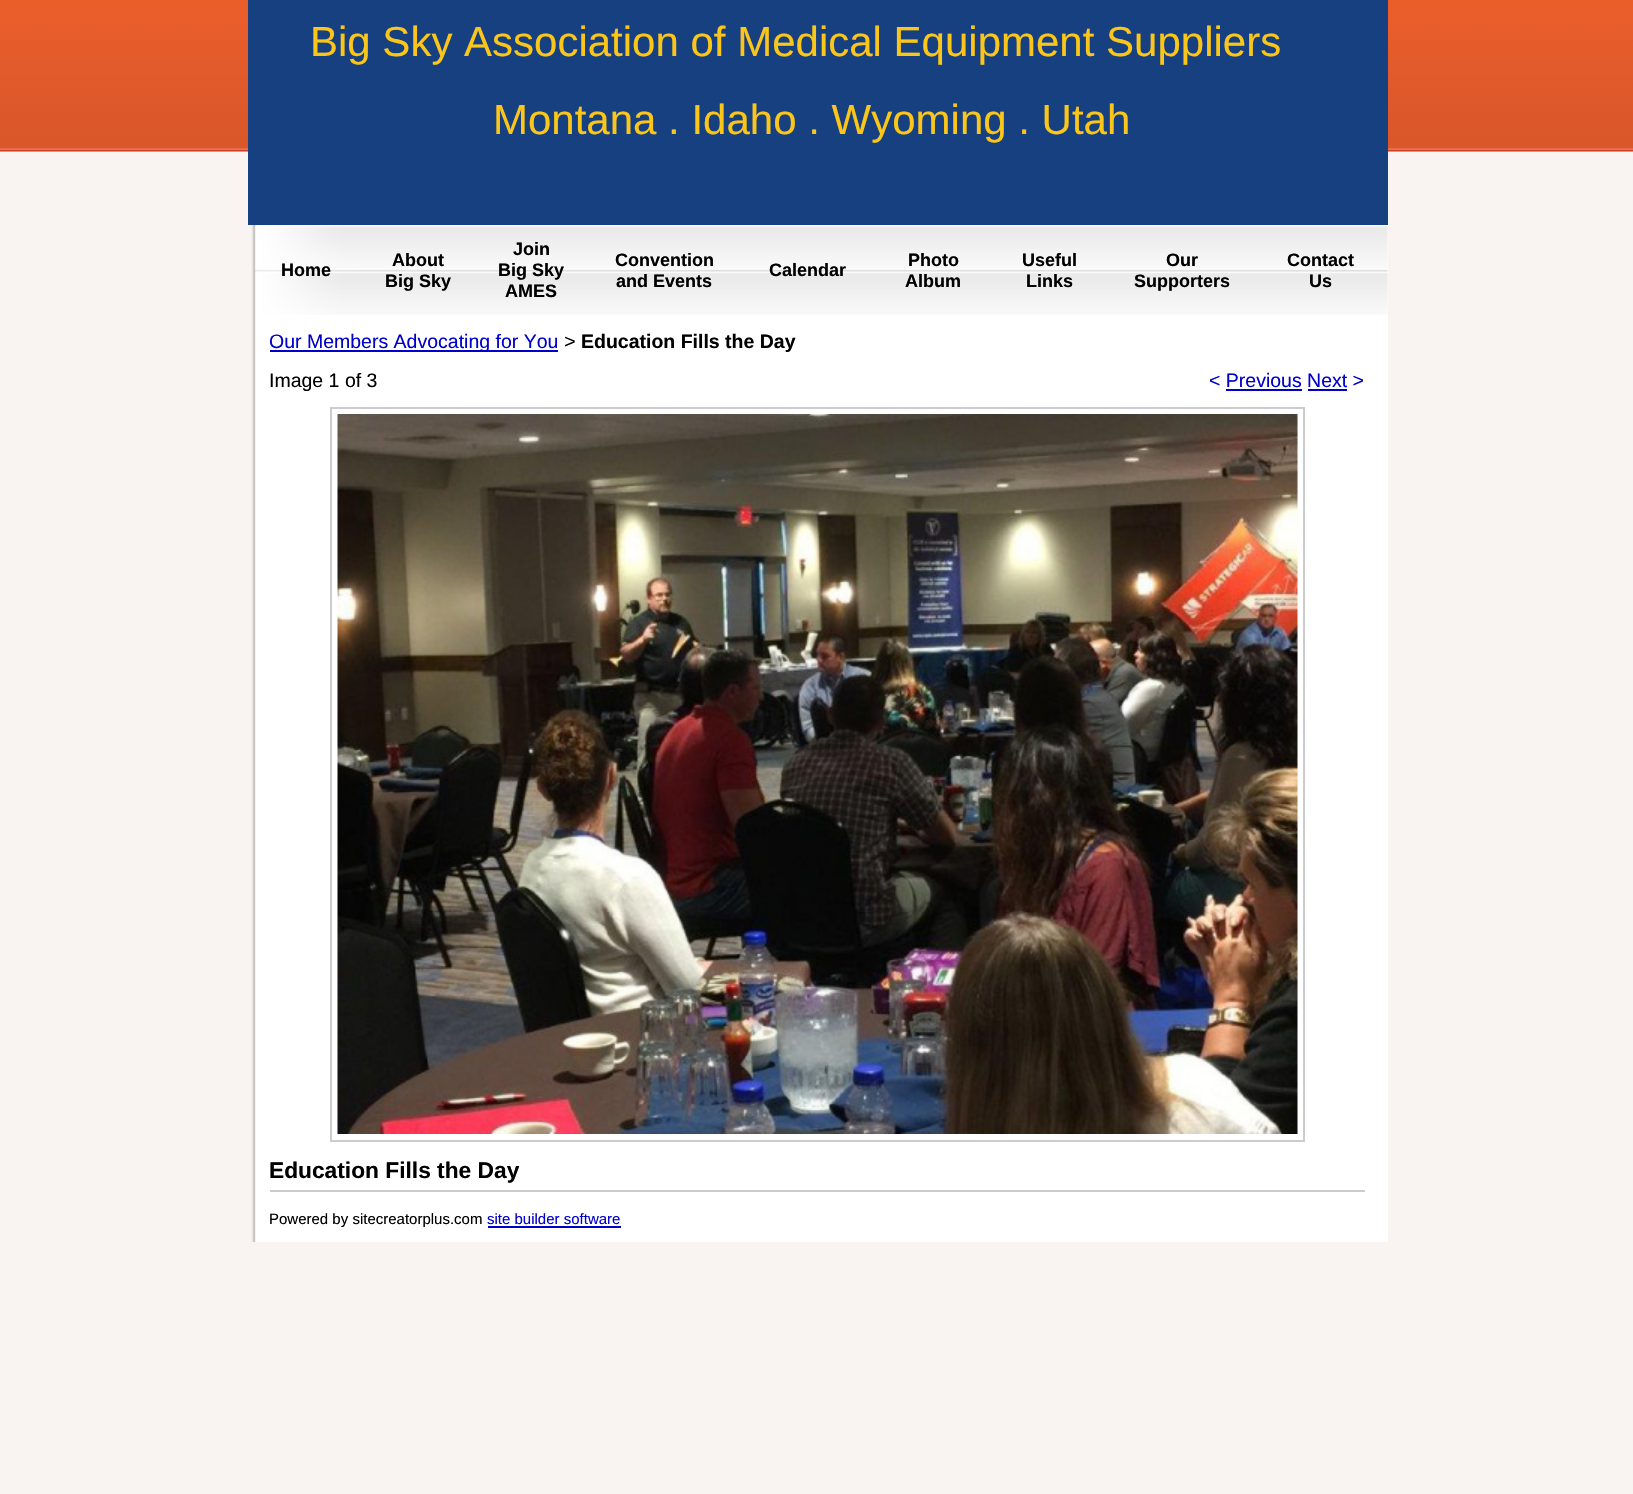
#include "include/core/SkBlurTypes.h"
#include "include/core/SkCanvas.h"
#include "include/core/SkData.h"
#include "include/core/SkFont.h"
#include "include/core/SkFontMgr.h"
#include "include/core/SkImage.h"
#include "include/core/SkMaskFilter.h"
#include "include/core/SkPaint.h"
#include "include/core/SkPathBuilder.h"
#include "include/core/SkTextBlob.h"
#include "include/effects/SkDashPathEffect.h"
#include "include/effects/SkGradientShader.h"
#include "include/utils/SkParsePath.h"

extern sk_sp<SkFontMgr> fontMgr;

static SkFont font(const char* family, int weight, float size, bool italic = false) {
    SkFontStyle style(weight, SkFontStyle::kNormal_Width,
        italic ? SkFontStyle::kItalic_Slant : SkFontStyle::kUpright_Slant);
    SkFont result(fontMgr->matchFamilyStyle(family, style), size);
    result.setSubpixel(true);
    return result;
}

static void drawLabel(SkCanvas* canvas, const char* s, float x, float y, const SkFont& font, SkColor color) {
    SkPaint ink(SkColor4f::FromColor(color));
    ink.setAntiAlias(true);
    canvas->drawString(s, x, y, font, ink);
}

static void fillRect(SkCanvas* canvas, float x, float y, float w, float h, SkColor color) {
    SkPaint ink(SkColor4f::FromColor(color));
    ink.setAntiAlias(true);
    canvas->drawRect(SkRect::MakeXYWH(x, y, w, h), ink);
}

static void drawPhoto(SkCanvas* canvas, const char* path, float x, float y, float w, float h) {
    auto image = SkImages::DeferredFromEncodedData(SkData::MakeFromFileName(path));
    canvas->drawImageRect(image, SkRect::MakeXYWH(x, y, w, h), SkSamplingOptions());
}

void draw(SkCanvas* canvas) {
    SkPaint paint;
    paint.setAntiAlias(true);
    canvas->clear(0xFFFFFFFF);
    drawPhoto(canvas, "assets/img1.png", 0, 0, 1633, 1494);
    fillRect(canvas, 1387, 225, 1, 90, 0xFFFFFFFF);
    fillRect(canvas, 248, 0, 1140, 225, 0xFF164080);
    SkFont font1 = font("Liberation Sans", 400, 42);
    drawLabel(canvas, "Big Sky Association of Medical Equipment Suppliers", 310, 56, font1, 0xFFFBC619);
    drawLabel(canvas, "Montana . Idaho . Wyoming . Utah", 493, 134, font1, 0xFFFBC619);
    drawPhoto(canvas, "assets/img2.png", 248, 225, 1140, 90);
    SkFont font2 = font("Liberation Sans", 700, 18);
    drawLabel(canvas, "Home", 281, 276, font2, 0xFF000000);
    drawLabel(canvas, "About", 392, 266, font2, 0xFF000000);
    drawLabel(canvas, "Big Sky", 385, 287, font2, 0xFF000000);
    drawLabel(canvas, "Join", 513, 255, font2, 0xFF000000);
    drawLabel(canvas, "Big Sky", 498, 276, font2, 0xFF000000);
    drawLabel(canvas, "AMES", 505, 297, font2, 0xFF000000);
    drawLabel(canvas, "Convention", 615, 266, font2, 0xFF000000);
    drawLabel(canvas, "and Events", 616, 287, font2, 0xFF000000);
    drawLabel(canvas, "Calendar", 769, 276, font2, 0xFF000000);
    drawLabel(canvas, "Photo", 908, 266, font2, 0xFF000000);
    drawLabel(canvas, "Album", 905, 287, font2, 0xFF000000);
    drawLabel(canvas, "Useful", 1022, 266, font2, 0xFF000000);
    drawLabel(canvas, "Links", 1026, 287, font2, 0xFF000000);
    drawLabel(canvas, "Our", 1166, 266, font2, 0xFF000000);
    drawLabel(canvas, "Supporters", 1134, 287, font2, 0xFF000000);
    drawLabel(canvas, "Contact", 1287, 266, font2, 0xFF000000);
    drawLabel(canvas, "Us", 1309, 287, font2, 0xFF000000);
    fillRect(canvas, 256, 315, 1132, 927, 0xFFFFFFFF);
    drawPhoto(canvas, "assets/img3.png", 248, 315, 8, 927);
    fillRect(canvas, 270, 350, 288, 2, 0xFF0000CC);
    SkFont font3 = font("Liberation Sans", 400, 19.5f);
    drawLabel(canvas, "Our Members Advocating for You", 269, 348, font3, 0xFF0000CC);
    SkFont font4 = font("Liberation Mono", 400, 19.5f);
    drawLabel(canvas, ">", 564, 348, font4, 0xFF000000);
    SkFont font5 = font("Liberation Sans", 700, 19.5f);
    drawLabel(canvas, "Education Fills the Day", 581, 348, font5, 0xFF000000);
    drawLabel(canvas, "Image 1 of 3", 269, 387, font3, 0xFF000000);
    drawLabel(canvas, "< Previous Next >", 1209, 387, font3, 0xFF0000CC);
    fillRect(canvas, 1226, 389, 76, 2, 0xFF0000CC);
    fillRect(canvas, 1308, 389, 39, 2, 0xFF0000CC);
    paint.setStroke(true);
    paint.setStrokeWidth(2);
    paint.setColor(0xFFCCCCCC);
    canvas->drawRect(SkRect::MakeXYWH(331, 408, 973, 733), paint);
    drawPhoto(canvas, "assets/img4.png", 337, 414, 961, 720);
    fillRect(canvas, 270, 1190, 1095, 2, 0xFFCCCCCC);
    SkFont font6 = font("Liberation Sans", 700, 22.75f);
    drawLabel(canvas, "Education Fills the Day", 269, 1178, font6, 0xFF000000);
    SkFont font7 = font("Liberation Sans", 400, 15);
    drawLabel(canvas, "Powered by sitecreatorplus.com", 269, 1224, font7, 0xFF000000);
    drawLabel(canvas, "site builder software", 487, 1224, font7, 0xFF0000CC);
    fillRect(canvas, 488, 1226, 133, 2, 0xFF0000CC);
}
